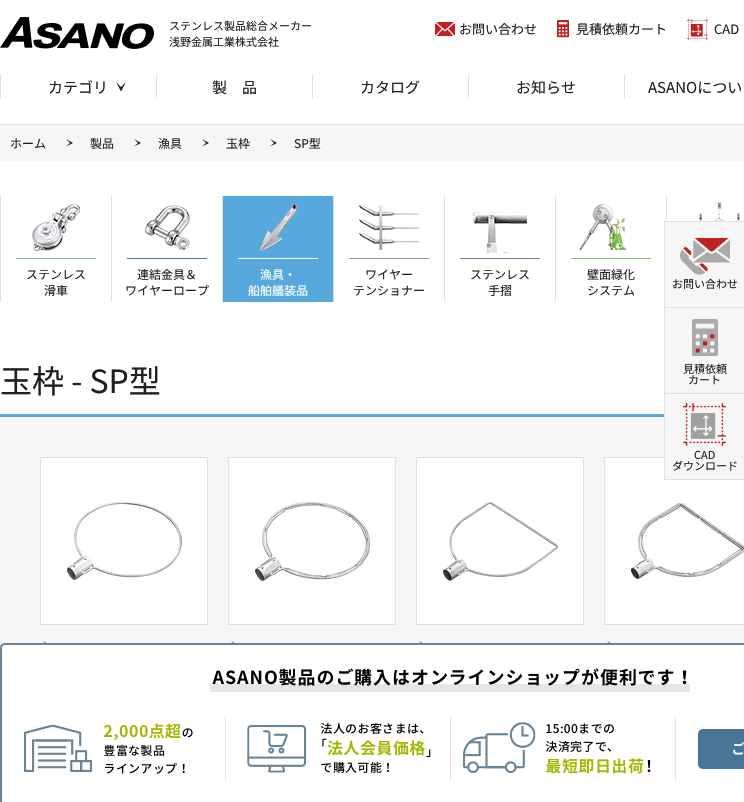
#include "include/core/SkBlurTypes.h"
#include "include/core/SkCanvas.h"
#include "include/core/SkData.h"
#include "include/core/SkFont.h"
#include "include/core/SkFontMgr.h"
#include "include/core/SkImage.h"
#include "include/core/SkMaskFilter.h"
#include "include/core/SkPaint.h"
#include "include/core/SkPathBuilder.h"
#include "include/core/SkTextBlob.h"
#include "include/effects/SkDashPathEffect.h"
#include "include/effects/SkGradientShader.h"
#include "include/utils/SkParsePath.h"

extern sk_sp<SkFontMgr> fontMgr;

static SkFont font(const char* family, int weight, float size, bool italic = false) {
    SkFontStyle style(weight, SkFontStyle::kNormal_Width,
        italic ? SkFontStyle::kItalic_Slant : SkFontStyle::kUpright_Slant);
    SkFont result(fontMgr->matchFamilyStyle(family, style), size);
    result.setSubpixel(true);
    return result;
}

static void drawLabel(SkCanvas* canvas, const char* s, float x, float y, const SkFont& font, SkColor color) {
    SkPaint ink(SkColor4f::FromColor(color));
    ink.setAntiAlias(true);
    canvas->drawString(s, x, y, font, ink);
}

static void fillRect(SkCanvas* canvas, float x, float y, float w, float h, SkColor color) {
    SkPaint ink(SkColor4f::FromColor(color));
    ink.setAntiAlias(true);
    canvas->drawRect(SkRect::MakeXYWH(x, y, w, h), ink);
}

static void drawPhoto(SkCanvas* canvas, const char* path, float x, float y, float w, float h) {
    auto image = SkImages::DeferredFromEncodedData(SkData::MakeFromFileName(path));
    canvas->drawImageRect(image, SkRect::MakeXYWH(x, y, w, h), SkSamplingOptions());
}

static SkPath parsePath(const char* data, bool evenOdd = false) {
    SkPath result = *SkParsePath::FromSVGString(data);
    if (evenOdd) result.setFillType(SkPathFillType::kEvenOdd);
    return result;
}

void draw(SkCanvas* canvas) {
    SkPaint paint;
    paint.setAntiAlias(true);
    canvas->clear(0xFFFFFFFF);
    drawPhoto(canvas, "assets/img1.png", 0, 17, 154, 32);
    SkFont font1 = font("Noto Sans JP", 400, 11);
    drawLabel(canvas, "ステンレス製品総合メーカー", 169, 30, font1, 0xFF202020);
    drawLabel(canvas, "浅野金属工業株式会社", 169, 46, font1, 0xFF202020);
    drawPhoto(canvas, "assets/img2.png", 435, 22, 20, 14);
    SkFont font2 = font("Noto Sans JP", 400, 13);
    drawLabel(canvas, "お問い合わせ", 459, 34, font2, 0xFF202020);
    drawPhoto(canvas, "assets/img3.png", 557, 20, 12, 18);
    drawLabel(canvas, "見積依頼カート", 576, 34, font2, 0xFF202020);
    drawPhoto(canvas, "assets/img4.png", 687, 19, 21, 21);
    drawLabel(canvas, "CAD", 714, 34, font2, 0xFF202020);
    fillRect(canvas, 0, 74, 1, 25, 0xFFE0E0E0);
    fillRect(canvas, 156, 74, 1, 25, 0xFFE0E0E0);
    paint.setColor(0xFF202020);
    canvas->drawPath(parsePath("M116 82L121 87L126 82L121 91.5Z"), paint);
    SkFont font3 = font("Noto Sans JP", 400, 15);
    drawLabel(canvas, "カテゴリ", 48, 93, font3, 0xFF202020);
    fillRect(canvas, 312, 74, 1, 25, 0xFFE0E0E0);
    drawLabel(canvas, "製　品", 212, 93, font3, 0xFF202020);
    fillRect(canvas, 468, 74, 1, 25, 0xFFE0E0E0);
    drawLabel(canvas, "カタログ", 360, 93, font3, 0xFF202020);
    fillRect(canvas, 624, 74, 1, 25, 0xFFE0E0E0);
    drawLabel(canvas, "お知らせ", 516, 93, font3, 0xFF202020);
    drawLabel(canvas, "ASANOについ", 648, 93, font3, 0xFF202020);
    fillRect(canvas, 664, 221, 80, 1, 0xFFE0E0E0);
    fillRect(canvas, 665, 222, 79, 85, 0xFFF6F6F6);
    fillRect(canvas, 664, 307, 80, 1, 0xFFE0E0E0);
    fillRect(canvas, 664, 222, 1, 86, 0xFFE0E0E0);
    drawPhoto(canvas, "assets/img5.png", 680, 238, 50, 37);
    drawLabel(canvas, "お問い合わせ", 672, 288, font1, 0xFF202020);
    fillRect(canvas, 665, 308, 79, 85, 0xFFF6F6F6);
    fillRect(canvas, 664, 393, 80, 1, 0xFFE0E0E0);
    fillRect(canvas, 664, 308, 1, 86, 0xFFE0E0E0);
    drawPhoto(canvas, "assets/img6.png", 692, 319, 26, 37);
    drawLabel(canvas, "見積依頼", 683, 373, font1, 0xFF202020);
    drawLabel(canvas, "カート", 688, 384, font1, 0xFF202020);
    fillRect(canvas, 0, 417, 744, 231, 0xFFF6F6F6);
    paint.setColor(0xFFFFFFFF);
    canvas->drawRect(SkRect::MakeXYWH(604.5f, 457.5f, 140, 167), paint);
    paint.setStroke(true);
    paint.setStrokeWidth(1);
    paint.setColor(0xFFE0E0E0);
    canvas->drawRect(SkRect::MakeXYWH(604.5f, 457.5f, 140, 167), paint);
    fillRect(canvas, 665, 394, 79, 85, 0xFFF6F6F6);
    fillRect(canvas, 664, 479, 80, 1, 0xFFE0E0E0);
    fillRect(canvas, 664, 394, 1, 86, 0xFFE0E0E0);
    drawPhoto(canvas, "assets/img7.png", 683, 403, 43, 43);
    drawLabel(canvas, "CAD", 694, 459, font1, 0xFF202020);
    drawLabel(canvas, "ダウンロード", 672, 470, font1, 0xFF202020);
    fillRect(canvas, 0, 125, 744, 36, 0xFFF6F6F6);
    fillRect(canvas, 0, 124, 744, 1, 0xFFE0E0E0);
    SkFont font4 = font("Noto Sans JP", 400, 12);
    drawLabel(canvas, "ホーム", 10, 148, font4, 0xFF202020);
    paint.setStroke(false);
    paint.setColor(0xFF202020);
    canvas->drawPath(parsePath("M66 146.5L70 143L66 139L73 143Z"), paint);
    drawLabel(canvas, "製品", 90, 148, font4, 0xFF202020);
    canvas->drawPath(parsePath("M134 146.5L138 143L134 139L141 143Z"), paint);
    drawLabel(canvas, "漁具", 158, 148, font4, 0xFF202020);
    canvas->drawPath(parsePath("M202 146.5L206 143L202 139L209 143Z"), paint);
    drawLabel(canvas, "玉枠", 226, 148, font4, 0xFF202020);
    canvas->drawPath(parsePath("M270 146.5L274 143L270 139L277 143Z"), paint);
    drawLabel(canvas, "SP型", 294, 148, font4, 0xFF202020);
    fillRect(canvas, 0, 196, 1, 106, 0xFFE0E0E0);
    drawPhoto(canvas, "assets/img8.png", 699, 202, 41, 19);
    fillRect(canvas, 111, 196, 1, 106, 0xFFE0E0E0);
    drawPhoto(canvas, "assets/img9.png", 32, 204, 48, 47);
    fillRect(canvas, 16, 258, 80, 1, 0xFF6AB5B5);
    drawLabel(canvas, "ステンレス", 26, 279, font4, 0xFF202020);
    drawLabel(canvas, "滑車", 44, 295, font4, 0xFF202020);
    fillRect(canvas, 222, 196, 1, 106, 0xFFE0E0E0);
    drawPhoto(canvas, "assets/img10.png", 145, 205, 45, 45);
    fillRect(canvas, 127, 258, 80, 1, 0xFF2284B3);
    drawLabel(canvas, "連結金具＆", 137, 279, font4, 0xFF202020);
    drawLabel(canvas, "ワイヤーロープ", 125, 295, font4, 0xFF202020);
    fillRect(canvas, 333, 196, 1, 106, 0xFFE0E0E0);
    fillRect(canvas, 223, 196, 110, 106, 0xFF57A8DD);
    drawPhoto(canvas, "assets/img11.png", 259, 203, 38, 48);
    fillRect(canvas, 238, 258, 80, 1, 0xFFFFFFFF);
    drawLabel(canvas, "漁具・", 260, 279, font4, 0xFFFFFFFF);
    drawLabel(canvas, "船舶艤装品", 248, 295, font4, 0xFFFFFFFF);
    fillRect(canvas, 444, 196, 1, 106, 0xFFE0E0E0);
    drawPhoto(canvas, "assets/img12.png", 359, 205, 60, 45);
    fillRect(canvas, 349, 258, 80, 1, 0xFF9F89AB);
    drawLabel(canvas, "ワイヤー", 365, 279, font4, 0xFF202020);
    drawLabel(canvas, "テンショナー", 353, 295, font4, 0xFF202020);
    fillRect(canvas, 555, 196, 1, 106, 0xFFE0E0E0);
    drawPhoto(canvas, "assets/img13.png", 473, 212, 54, 41);
    fillRect(canvas, 460, 258, 80, 1, 0xFF6C819E);
    drawLabel(canvas, "ステンレス", 470, 279, font4, 0xFF202020);
    drawLabel(canvas, "手摺", 488, 295, font4, 0xFF202020);
    fillRect(canvas, 666, 196, 1, 25, 0xFFE0E0E0);
    drawPhoto(canvas, "assets/img14.png", 579, 204, 48, 46);
    fillRect(canvas, 571, 258, 80, 1, 0xFF83BE5F);
    drawLabel(canvas, "壁面緑化", 587, 279, font4, 0xFF202020);
    drawLabel(canvas, "システム", 587, 295, font4, 0xFF202020);
    fillRect(canvas, 0, 414, 664, 3, 0xFF57A8DD);
    SkFont font5 = font("Noto Sans JP", 400, 32);
    drawLabel(canvas, "玉枠 - SP型", 0, 393, font5, 0xFF202020);
    paint.setColor(0xFFFFFFFF);
    canvas->drawRect(SkRect::MakeXYWH(40.5f, 457.5f, 167, 167), paint);
    paint.setStroke(true);
    paint.setColor(0xFFE0E0E0);
    canvas->drawRect(SkRect::MakeXYWH(40.5f, 457.5f, 167, 167), paint);
    drawPhoto(canvas, "assets/img15.png", 67, 502, 115, 78);
    paint.setStroke(false);
    paint.setColor(0xFFBE2121);
    canvas->drawPath(parsePath("M43 650.5L48 646L43 641L52 646Z"), paint);
    paint.setColor(0xFFFFFFFF);
    canvas->drawRect(SkRect::MakeXYWH(228.5f, 457.5f, 167, 167), paint);
    paint.setStroke(true);
    paint.setColor(0xFFE0E0E0);
    canvas->drawRect(SkRect::MakeXYWH(228.5f, 457.5f, 167, 167), paint);
    drawPhoto(canvas, "assets/img16.png", 255, 502, 115, 79);
    paint.setStroke(false);
    paint.setColor(0xFFBE2121);
    canvas->drawPath(parsePath("M231 650.5L236 646L231 641L240 646Z"), paint);
    paint.setColor(0xFFFFFFFF);
    canvas->drawRect(SkRect::MakeXYWH(416.5f, 457.5f, 167, 167), paint);
    paint.setStroke(true);
    paint.setColor(0xFFE0E0E0);
    canvas->drawRect(SkRect::MakeXYWH(416.5f, 457.5f, 167, 167), paint);
    drawPhoto(canvas, "assets/img17.png", 443, 502, 115, 79);
    paint.setStroke(false);
    paint.setColor(0xFFBE2121);
    canvas->drawPath(parsePath("M419 650.5L424 646L419 641L428 646Z"), paint);
    drawPhoto(canvas, "assets/img18.png", 631, 503, 113, 76);
    canvas->drawPath(parsePath("M607 650.5L612 646L607 641L616 646Z"), paint);
    drawPhoto(canvas, "assets/img19.png", 0, 643, 744, 159);
}
